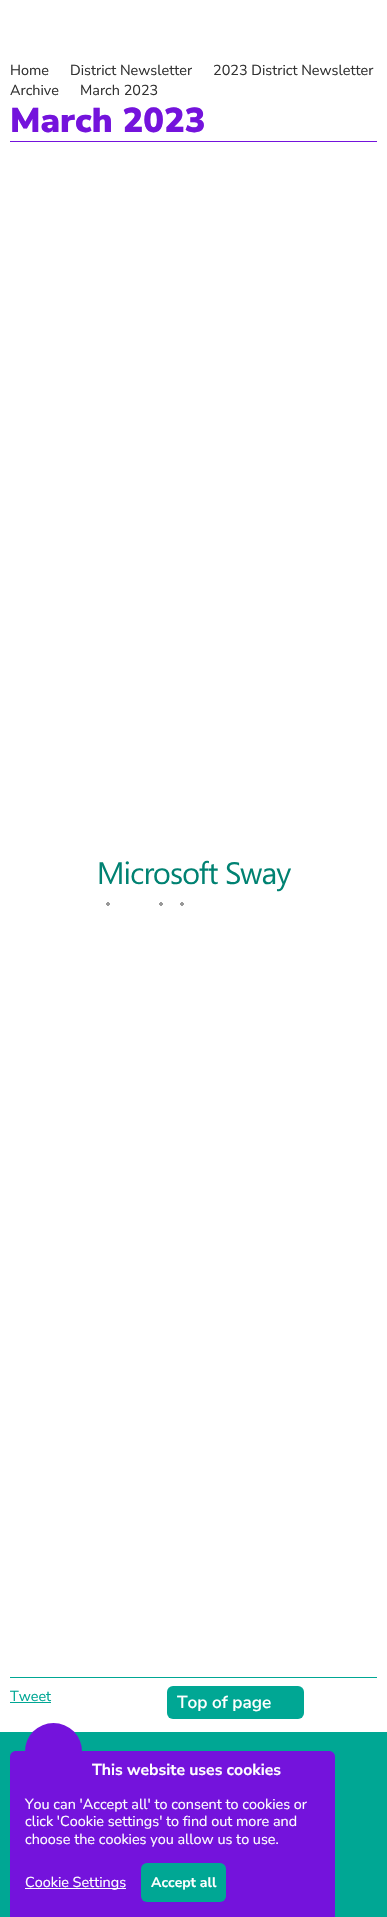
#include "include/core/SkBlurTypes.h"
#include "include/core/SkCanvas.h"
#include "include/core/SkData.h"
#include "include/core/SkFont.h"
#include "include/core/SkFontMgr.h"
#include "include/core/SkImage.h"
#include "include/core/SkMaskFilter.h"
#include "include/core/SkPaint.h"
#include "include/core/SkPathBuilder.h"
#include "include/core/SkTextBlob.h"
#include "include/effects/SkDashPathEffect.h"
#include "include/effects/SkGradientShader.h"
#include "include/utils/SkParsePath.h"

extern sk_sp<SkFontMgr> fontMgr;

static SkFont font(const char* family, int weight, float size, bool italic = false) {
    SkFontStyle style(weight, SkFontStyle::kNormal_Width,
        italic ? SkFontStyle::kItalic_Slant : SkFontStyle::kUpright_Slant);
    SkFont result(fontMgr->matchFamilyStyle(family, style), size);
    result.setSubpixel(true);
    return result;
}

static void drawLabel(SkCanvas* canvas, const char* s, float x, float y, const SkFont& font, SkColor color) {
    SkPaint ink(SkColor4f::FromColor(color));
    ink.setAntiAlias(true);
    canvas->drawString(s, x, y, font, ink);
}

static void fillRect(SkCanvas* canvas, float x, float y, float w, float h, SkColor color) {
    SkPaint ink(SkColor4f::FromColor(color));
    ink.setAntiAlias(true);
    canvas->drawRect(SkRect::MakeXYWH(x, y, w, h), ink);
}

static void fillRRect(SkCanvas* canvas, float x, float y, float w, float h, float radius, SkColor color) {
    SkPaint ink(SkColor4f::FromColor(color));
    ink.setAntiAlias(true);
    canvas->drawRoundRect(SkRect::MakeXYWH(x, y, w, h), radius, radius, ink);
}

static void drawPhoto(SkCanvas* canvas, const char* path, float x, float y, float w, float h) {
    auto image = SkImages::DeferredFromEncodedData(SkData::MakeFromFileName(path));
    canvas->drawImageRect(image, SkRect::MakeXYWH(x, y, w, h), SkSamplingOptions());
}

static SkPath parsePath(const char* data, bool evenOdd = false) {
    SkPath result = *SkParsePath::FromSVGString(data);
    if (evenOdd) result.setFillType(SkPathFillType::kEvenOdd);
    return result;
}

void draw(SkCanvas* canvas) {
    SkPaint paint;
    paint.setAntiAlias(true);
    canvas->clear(0xFF00A794);
    fillRect(canvas, 0, 0, 387, 1732, 0xFFFFFFFF);
    SkFont font1 = font("Nunito Sans", 400, 14.4f);
    drawLabel(canvas, "Home", 10, 75, font1, 0xFF333333);
    drawLabel(canvas, "District Newsletter", 70, 75, font1, 0xFF333333);
    drawLabel(canvas, "2023 District Newsletter", 213, 75, font1, 0xFF333333);
    drawLabel(canvas, "Archive", 10, 95, font1, 0xFF333333);
    drawLabel(canvas, "March 2023", 80, 95, font1, 0xFF333333);
    fillRect(canvas, 10, 141, 367, 1, 0xFF7413DC);
    SkFont font2 = font("Nunito Sans", 900, 34.5f);
    drawLabel(canvas, "March 2023", 10, 132, font2, 0xFF7413DC);
    drawPhoto(canvas, "assets/img1.png", 99, 860, 192, 46);
    fillRect(canvas, 10, 1677, 367, 1, 0xFF00A794);
    drawLabel(canvas, "Tweet", 10, 1701, font1, 0xFF00A794);
    fillRect(canvas, 10, 1702, 41, 1, 0xFF00A794);
    fillRRect(canvas, 167, 1686, 137, 33, 6, 0xFF00A794);
    SkFont font3 = font("Nunito Sans", 600, 17.25f);
    drawLabel(canvas, "Top of page", 177, 1708, font3, 0xFFFFFFFF);
    paint.setColor(0xFF7413DC);
    canvas->drawPath(parsePath("M16 1751H329C332.5 1751 335 1753.5 335 1757V1917H10V1757C10 1753.5 12.5 1751 16 1751Z"), paint);
    fillRRect(canvas, 25, 1723, 57, 72, 28.5f, 0xFF7413DC);
    SkFont font4 = font("Nunito Sans", 700, 15.8f);
    drawLabel(canvas, "This website uses cookies", 92, 1775, font4, 0xFFFFFFFF);
    drawLabel(canvas, "You can 'Accept all' to consent to cookies or", 25, 1809, font1, 0xFFFFFFFF);
    drawLabel(canvas, "click 'Cookie settings' to find out more and", 25, 1826, font1, 0xFFFFFFFF);
    drawLabel(canvas, "choose the cookies you allow us to use.", 25, 1844, font1, 0xFFFFFFFF);
    fillRect(canvas, 25, 1888, 101, 1, 0xFFFFFFFF);
    drawLabel(canvas, "Cookie Settings", 25, 1887, font1, 0xFFFFFFFF);
    fillRRect(canvas, 141, 1863, 85, 39, 6, 0xFF00A794);
    SkFont font5 = font("Nunito Sans", 700, 14);
    drawLabel(canvas, "Accept all", 151, 1887, font5, 0xFFFFFFFF);
}
